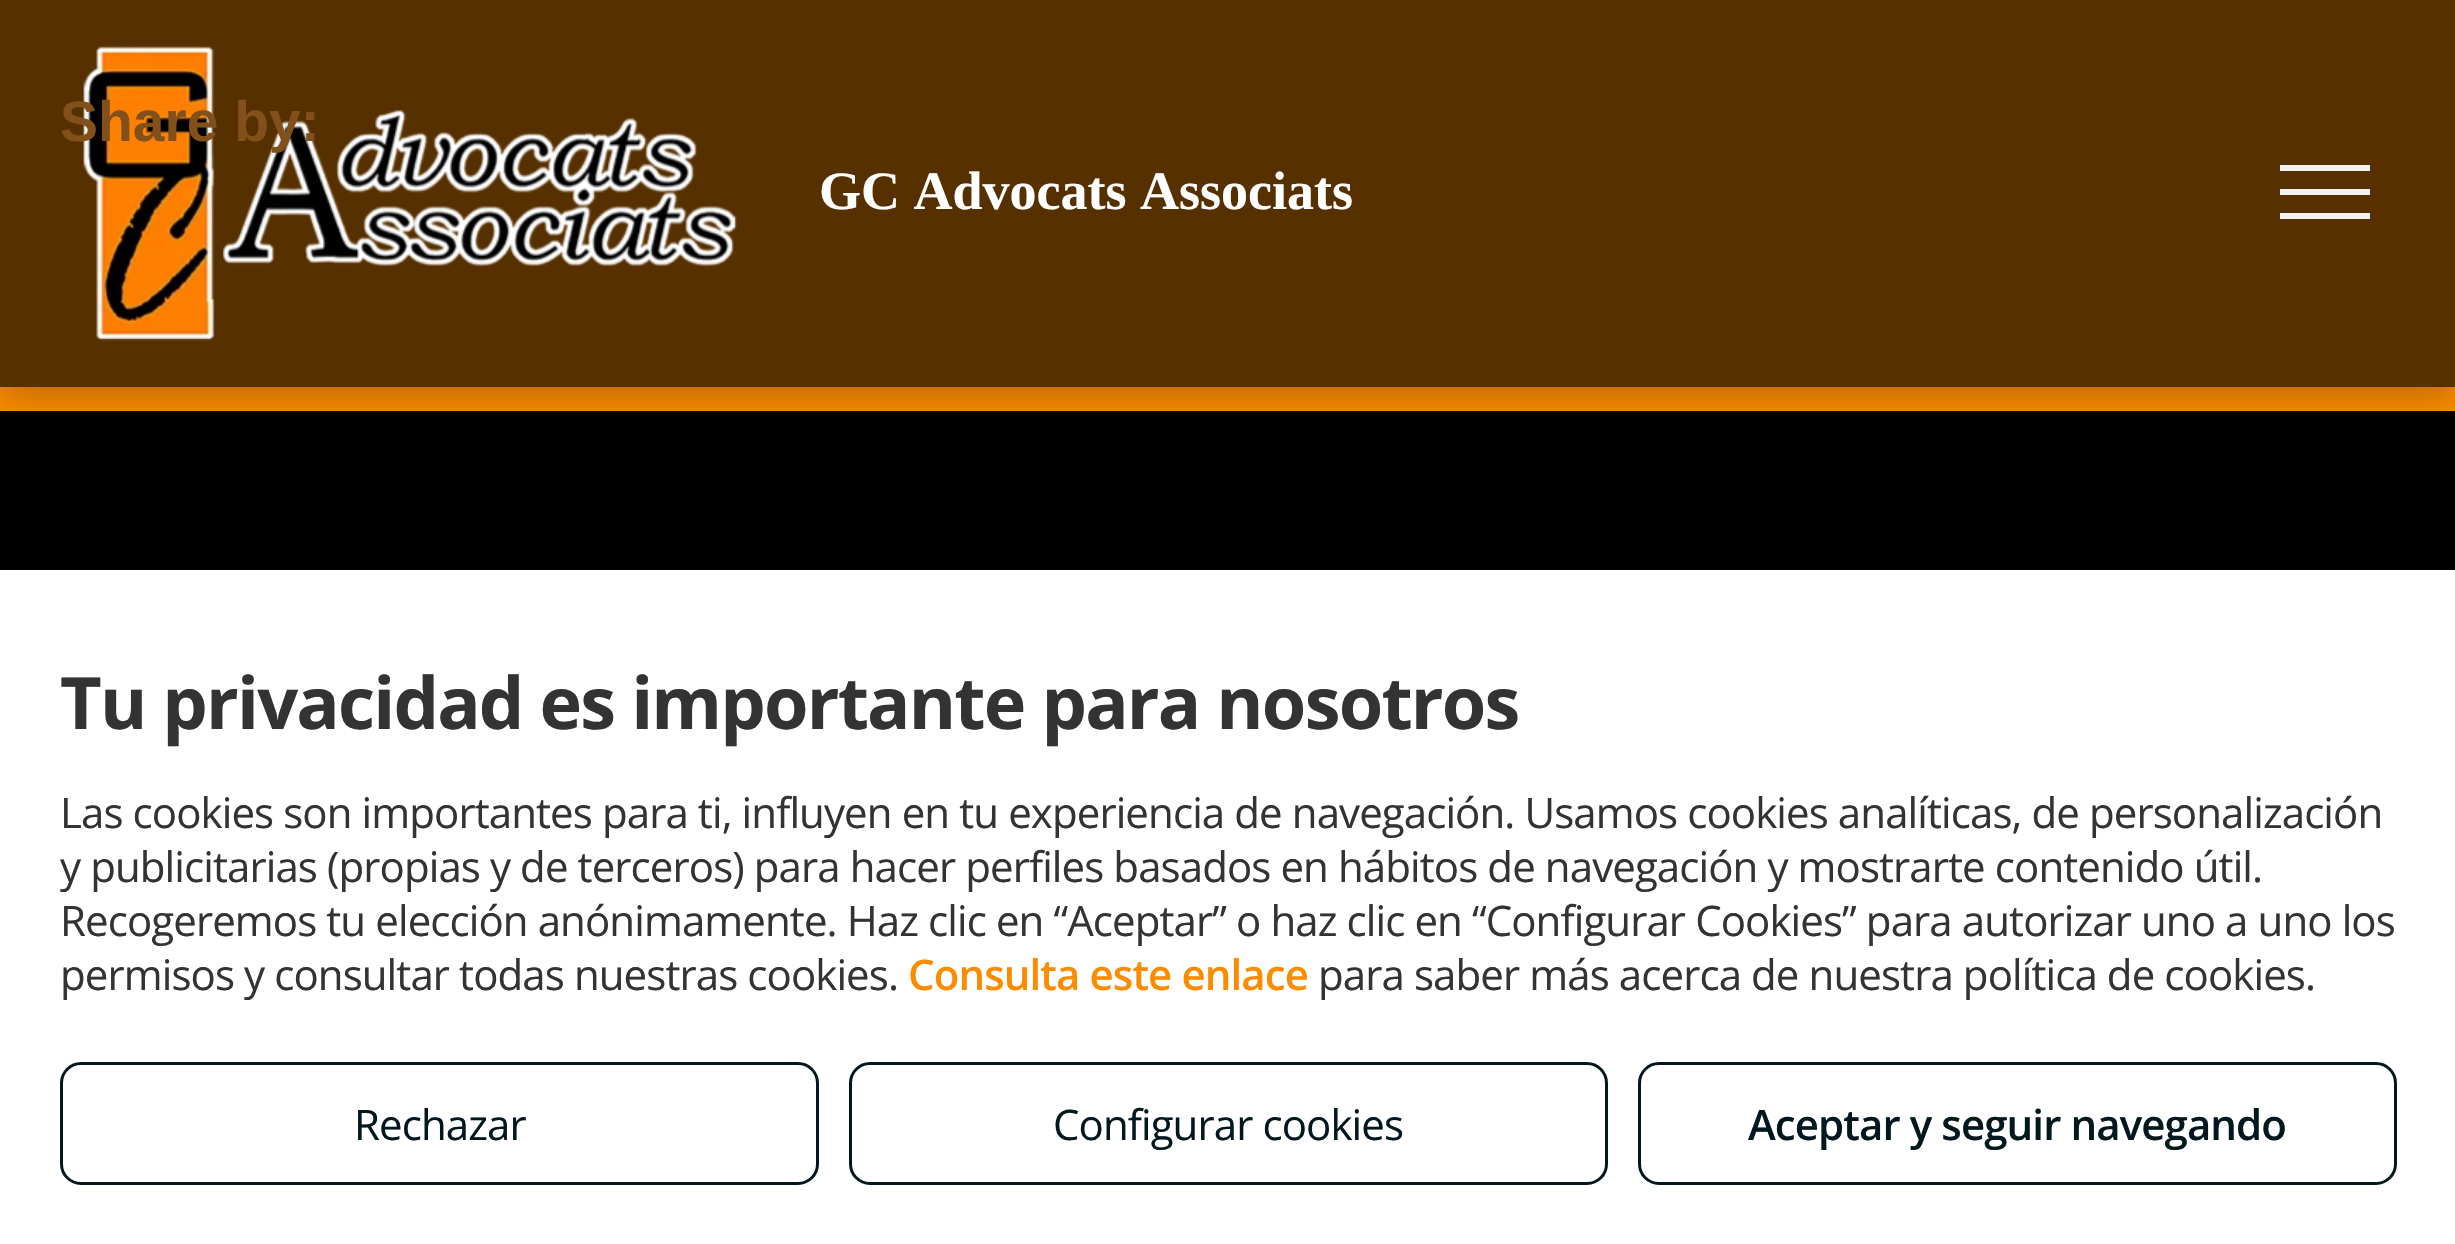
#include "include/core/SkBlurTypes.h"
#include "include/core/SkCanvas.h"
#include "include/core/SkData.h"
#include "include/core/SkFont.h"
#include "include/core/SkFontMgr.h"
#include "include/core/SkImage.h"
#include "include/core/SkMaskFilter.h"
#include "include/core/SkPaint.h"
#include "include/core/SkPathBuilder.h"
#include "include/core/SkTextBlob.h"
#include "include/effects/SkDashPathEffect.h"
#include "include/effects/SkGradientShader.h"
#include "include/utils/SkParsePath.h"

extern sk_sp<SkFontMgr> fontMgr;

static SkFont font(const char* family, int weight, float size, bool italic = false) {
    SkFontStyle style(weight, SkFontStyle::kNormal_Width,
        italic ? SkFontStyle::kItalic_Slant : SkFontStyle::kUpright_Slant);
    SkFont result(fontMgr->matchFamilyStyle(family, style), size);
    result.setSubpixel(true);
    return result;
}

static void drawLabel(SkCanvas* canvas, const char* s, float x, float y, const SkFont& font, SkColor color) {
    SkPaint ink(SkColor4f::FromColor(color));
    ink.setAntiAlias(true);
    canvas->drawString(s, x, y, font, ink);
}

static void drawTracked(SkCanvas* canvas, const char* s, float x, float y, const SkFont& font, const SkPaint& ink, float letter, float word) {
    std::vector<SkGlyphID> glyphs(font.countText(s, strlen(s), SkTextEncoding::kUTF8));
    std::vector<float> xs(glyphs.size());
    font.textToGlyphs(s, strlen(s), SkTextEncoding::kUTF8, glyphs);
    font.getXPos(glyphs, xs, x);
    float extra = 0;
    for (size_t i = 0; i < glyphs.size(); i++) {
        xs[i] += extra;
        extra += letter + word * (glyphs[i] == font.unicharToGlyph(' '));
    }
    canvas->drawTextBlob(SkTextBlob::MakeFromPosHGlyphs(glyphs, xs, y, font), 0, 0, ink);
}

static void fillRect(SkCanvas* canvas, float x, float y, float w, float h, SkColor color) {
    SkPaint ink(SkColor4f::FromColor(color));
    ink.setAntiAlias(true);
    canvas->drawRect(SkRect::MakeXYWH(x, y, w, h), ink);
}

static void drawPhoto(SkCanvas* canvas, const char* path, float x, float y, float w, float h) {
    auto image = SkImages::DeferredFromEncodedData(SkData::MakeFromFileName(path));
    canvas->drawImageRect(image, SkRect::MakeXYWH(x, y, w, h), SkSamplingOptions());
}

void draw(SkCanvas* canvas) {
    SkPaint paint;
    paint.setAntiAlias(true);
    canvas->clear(0xFFFB8C00);
    fillRect(canvas, 0, 411, 2455, 159, 0xFF000000);
    paint.setColor(0x40000000);
    paint.setMaskFilter(SkMaskFilter::MakeBlur(kNormal_SkBlurStyle, 16.5f));
    canvas->drawRect(SkRect::MakeXYWH(0, 9, 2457, 387), paint);
    paint.setMaskFilter(nullptr);
    fillRect(canvas, 0, 0, 2455, 387, 0xFF573000);
    drawPhoto(canvas, "assets/img1.png", 83, 46, 654, 295);
    SkFont font1 = font("Liberation Sans", 700, 57);
    drawLabel(canvas, "Share by:", 60, 141, font1, 0xFF81501B);
    SkFont font2 = font("Liberation Serif", 700, 54);
    drawLabel(canvas, "GC Advocats Associats", 819, 209, font2, 0xFFFFFFFF);
    fillRect(canvas, 2280, 165, 90, 6, 0xFFF0F0F0);
    fillRect(canvas, 2280, 189, 90, 6, 0xFFF0F0F0);
    fillRect(canvas, 2280, 213, 90, 6, 0xFFF0F0F0);
    fillRect(canvas, 0, 570, 2455, 674, 0xFFFFFFFF);
    SkFont font3 = font("Open Sans", 700, 72);
    paint.setColor(0xFF333333);
    drawTracked(canvas, "Tu privacidad es importante para nosotros", 60, 729, font3, paint, -1.8f, 0);
    SkFont font4 = font("Open Sans", 400, 42);
    drawTracked(canvas, "Las cookies son importantes para ti, influyen en tu experiencia de navegación. Usamos cookies analíticas, de personalización", 60, 828, font4, paint, -0.9f, 0);
    drawTracked(canvas, "y publicitarias (propias y de terceros) para hacer perfiles basados en hábitos de navegación y mostrarte contenido útil.", 60, 882, font4, paint, -0.9f, 0);
    drawTracked(canvas, "Recogeremos tu elección anónimamente. Haz clic en “Aceptar” o haz clic en “Configurar Cookies” para autorizar uno a uno los", 60, 936, font4, paint, -0.9f, 0);
    drawTracked(canvas, "permisos y consultar todas nuestras cookies.", 60, 990, font4, paint, -0.9f, 0);
    SkFont font5 = font("Open Sans", 600, 42);
    paint.setColor(0xFFFB8C00);
    drawTracked(canvas, "Consulta este enlace", 908, 990, font5, paint, -0.9f, 0);
    paint.setColor(0xFF333333);
    drawTracked(canvas, "para saber más acerca de nuestra política de cookies.", 1318, 990, font4, paint, -0.9f, 0);
    paint.setStroke(true);
    paint.setStrokeWidth(3);
    paint.setColor(0xFF03181E);
    canvas->drawRoundRect(SkRect::MakeXYWH(61.5f, 1063.5f, 756, 120), 19.5f, 19.5f, paint);
    paint.setStroke(false);
    drawTracked(canvas, "Rechazar", 354, 1140, font4, paint, -0.9f, 0);
    paint.setStroke(true);
    canvas->drawRoundRect(SkRect::MakeXYWH(850.5f, 1063.5f, 756, 120), 19.5f, 19.5f, paint);
    paint.setStroke(false);
    drawTracked(canvas, "Configurar cookies", 1053, 1140, font4, paint, -0.9f, 0);
    paint.setStroke(true);
    canvas->drawRoundRect(SkRect::MakeXYWH(1639.5f, 1063.5f, 756, 120), 19.5f, 19.5f, paint);
    paint.setStroke(false);
    drawTracked(canvas, "Aceptar y seguir navegando", 1748, 1140, font5, paint, -0.9f, 0);
}
